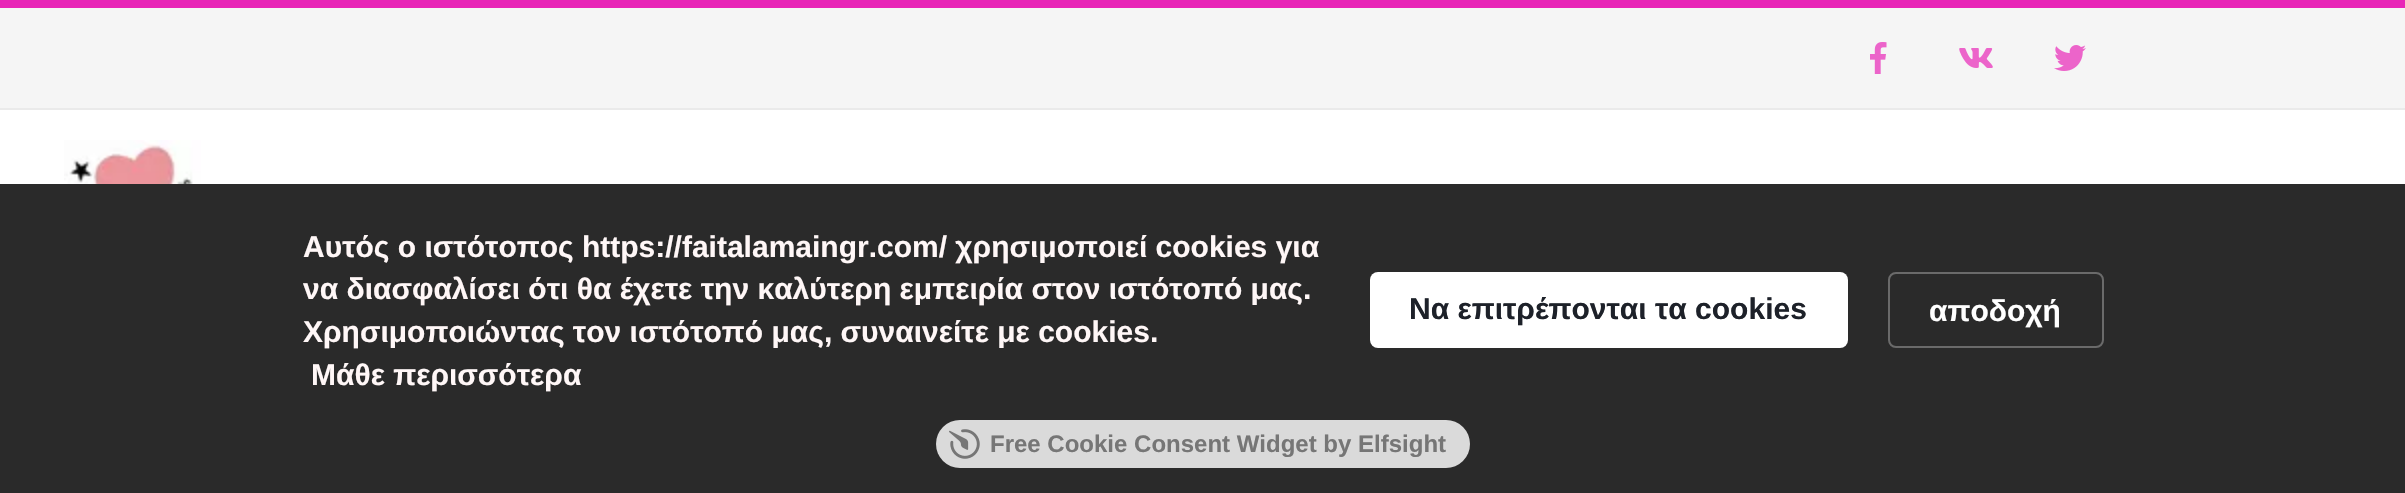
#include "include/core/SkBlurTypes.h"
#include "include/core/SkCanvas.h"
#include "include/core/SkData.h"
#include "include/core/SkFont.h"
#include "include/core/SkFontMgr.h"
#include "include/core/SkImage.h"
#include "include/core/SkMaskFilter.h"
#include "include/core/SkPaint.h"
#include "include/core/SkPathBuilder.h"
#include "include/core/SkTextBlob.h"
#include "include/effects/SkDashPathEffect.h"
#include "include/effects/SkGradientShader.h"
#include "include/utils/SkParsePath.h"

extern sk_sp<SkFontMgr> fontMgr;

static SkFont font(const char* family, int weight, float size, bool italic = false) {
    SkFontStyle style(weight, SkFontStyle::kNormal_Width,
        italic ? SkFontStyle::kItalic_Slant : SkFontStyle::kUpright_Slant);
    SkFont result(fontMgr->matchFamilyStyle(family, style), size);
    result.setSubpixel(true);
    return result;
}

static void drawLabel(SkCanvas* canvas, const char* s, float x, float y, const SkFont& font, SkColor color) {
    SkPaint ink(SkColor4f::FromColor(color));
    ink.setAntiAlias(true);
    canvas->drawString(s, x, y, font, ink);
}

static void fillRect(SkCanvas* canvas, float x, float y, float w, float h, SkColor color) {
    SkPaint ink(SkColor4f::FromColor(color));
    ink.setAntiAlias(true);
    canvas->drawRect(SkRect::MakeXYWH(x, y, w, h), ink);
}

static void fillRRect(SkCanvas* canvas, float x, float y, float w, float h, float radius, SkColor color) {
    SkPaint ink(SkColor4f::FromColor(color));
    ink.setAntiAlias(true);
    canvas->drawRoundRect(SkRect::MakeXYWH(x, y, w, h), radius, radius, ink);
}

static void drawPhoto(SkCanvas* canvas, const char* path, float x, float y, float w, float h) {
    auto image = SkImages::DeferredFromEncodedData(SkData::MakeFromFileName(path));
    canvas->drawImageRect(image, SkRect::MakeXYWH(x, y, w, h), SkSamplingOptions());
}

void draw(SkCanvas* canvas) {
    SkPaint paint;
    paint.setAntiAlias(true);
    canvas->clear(0xFFFFFFFF);
    fillRect(canvas, 0, 8, 2405, 100, 0xFFF5F5F5);
    fillRect(canvas, 0, 0, 2405, 8, 0xFFE825B7);
    drawPhoto(canvas, "assets/img1.png", 1870, 42, 17, 32);
    drawPhoto(canvas, "assets/img2.png", 1959, 48, 34, 20);
    drawPhoto(canvas, "assets/img3.png", 2054, 45, 32, 26);
    fillRect(canvas, 0, 108, 2405, 2, 0xFFEAEAEA);
    drawPhoto(canvas, "assets/img4.png", 64, 140, 137, 44);
    fillRect(canvas, 0, 184, 2405, 309, 0xFF2A2A2A);
    SkFont font1 = font("Liberation Sans", 700, 30);
    drawLabel(canvas, "Αυτός ο ιστότοπος https://faitalamaingr.com/ χρησιμοποιεί cookies για", 303, 257, font1, 0xFFFFF7F7);
    drawLabel(canvas, "να διασφαλίσει ότι θα έχετε την καλύτερη εμπειρία στον ιστότοπό μας.", 303, 299, font1, 0xFFFFF7F7);
    drawLabel(canvas, "Χρησιμοποιώντας τον ιστότοπό μας, συναινείτε με cookies.", 303, 342, font1, 0xFFFFF7F7);
    drawLabel(canvas, "Μάθε περισσότερα", 311, 385, font1, 0xFFFFF7F7);
    fillRRect(canvas, 1370, 272, 478, 76, 8, 0xFFFFFFFF);
    drawLabel(canvas, "Να επιτρέπονται τα cookies", 1409, 319, font1, 0xFF1D2129);
    paint.setStroke(true);
    paint.setStrokeWidth(2);
    paint.setColor(0xFF6A6A6A);
    canvas->drawRoundRect(SkRect::MakeXYWH(1889, 273, 214, 74), 7, 7, paint);
    drawLabel(canvas, "αποδοχή", 1929, 321, font1, 0xFFFFFFFF);
    fillRRect(canvas, 936, 420, 534, 48, 24, 0xFFDADADA);
    drawPhoto(canvas, "assets/img5.png", 949, 429, 31, 30);
    SkFont font2 = font("Liberation Sans", 700, 24);
    drawLabel(canvas, "Free Cookie Consent Widget by Elfsight", 990, 452, font2, 0xFF767676);
}
